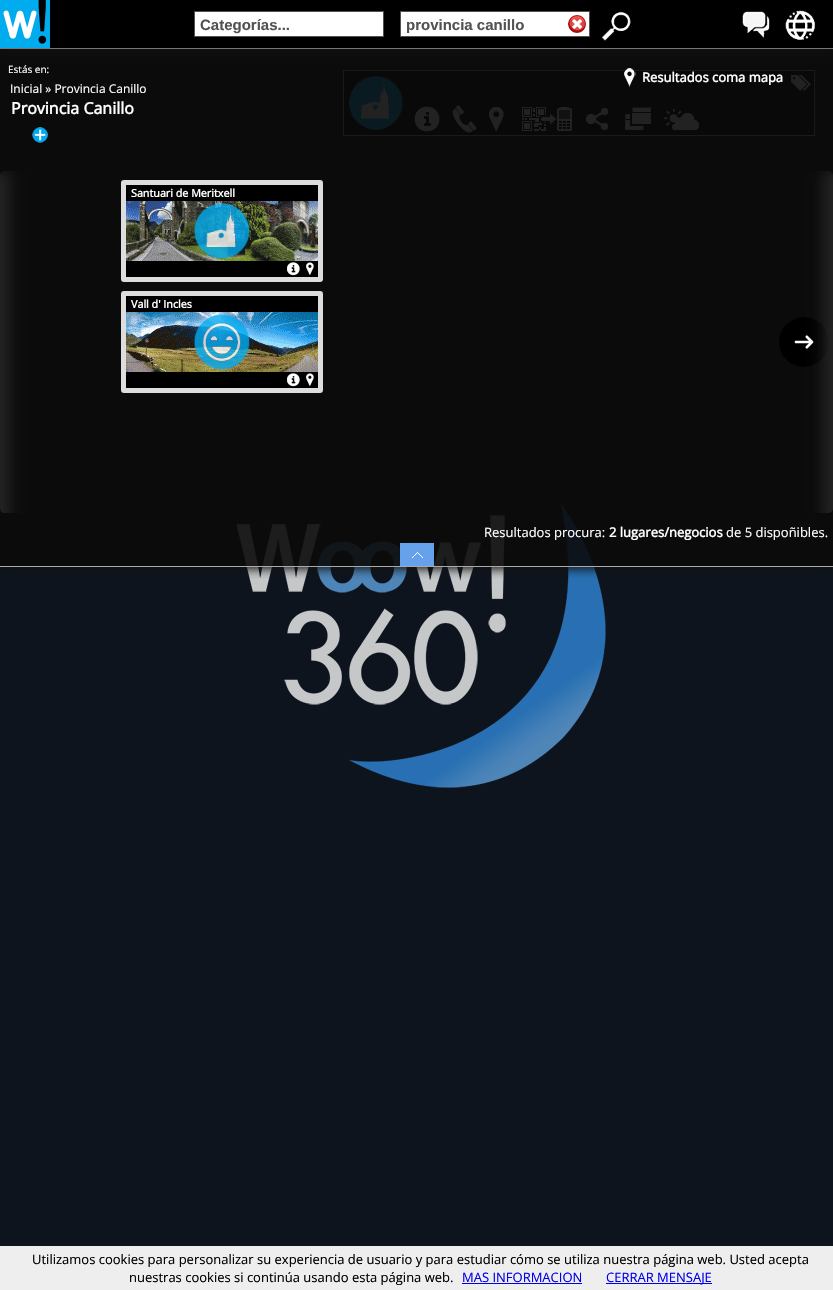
#include "include/core/SkBlurTypes.h"
#include "include/core/SkCanvas.h"
#include "include/core/SkData.h"
#include "include/core/SkFont.h"
#include "include/core/SkFontMgr.h"
#include "include/core/SkImage.h"
#include "include/core/SkMaskFilter.h"
#include "include/core/SkPaint.h"
#include "include/core/SkPathBuilder.h"
#include "include/core/SkTextBlob.h"
#include "include/effects/SkDashPathEffect.h"
#include "include/effects/SkGradientShader.h"
#include "include/utils/SkParsePath.h"

extern sk_sp<SkFontMgr> fontMgr;

static SkFont font(const char* family, int weight, float size, bool italic = false) {
    SkFontStyle style(weight, SkFontStyle::kNormal_Width,
        italic ? SkFontStyle::kItalic_Slant : SkFontStyle::kUpright_Slant);
    SkFont result(fontMgr->matchFamilyStyle(family, style), size);
    result.setSubpixel(true);
    return result;
}

static void drawLabel(SkCanvas* canvas, const char* s, float x, float y, const SkFont& font, SkColor color) {
    SkPaint ink(SkColor4f::FromColor(color));
    ink.setAntiAlias(true);
    canvas->drawString(s, x, y, font, ink);
}

static void fillRect(SkCanvas* canvas, float x, float y, float w, float h, SkColor color) {
    SkPaint ink(SkColor4f::FromColor(color));
    ink.setAntiAlias(true);
    canvas->drawRect(SkRect::MakeXYWH(x, y, w, h), ink);
}

static void drawPhoto(SkCanvas* canvas, const char* path, float x, float y, float w, float h) {
    auto image = SkImages::DeferredFromEncodedData(SkData::MakeFromFileName(path));
    canvas->drawImageRect(image, SkRect::MakeXYWH(x, y, w, h), SkSamplingOptions());
}

static SkPath parsePath(const char* data, bool evenOdd = false) {
    SkPath result = *SkParsePath::FromSVGString(data);
    if (evenOdd) result.setFillType(SkPathFillType::kEvenOdd);
    return result;
}

void draw(SkCanvas* canvas) {
    SkPaint paint;
    paint.setAntiAlias(true);
    canvas->clear(0xFF0D141D);
    drawPhoto(canvas, "assets/img1.png", 236, 503, 370, 285);
    paint.setColor(0xFF111111);
    paint.setMaskFilter(SkMaskFilter::MakeBlur(kNormal_SkBlurStyle, 5));
    canvas->drawRect(SkRect::MakeXYWH(345, 72, 472, 66), paint);
    paint.setMaskFilter(nullptr);
    paint.setColor(0xFF000000);
    canvas->drawRect(SkRect::MakeXYWH(343.5f, 70.5f, 471, 65), paint);
    paint.setStroke(true);
    paint.setStrokeWidth(1);
    paint.setColor(0xFFAAAAAA);
    canvas->drawRect(SkRect::MakeXYWH(343.5f, 70.5f, 471, 65), paint);
    drawPhoto(canvas, "assets/img7.png", 349, 76, 54, 54);
    drawPhoto(canvas, "assets/img8.png", 414, 106, 26, 26);
    drawPhoto(canvas, "assets/img9.png", 452, 105, 25, 28);
    drawPhoto(canvas, "assets/img10.png", 489, 107, 15, 24);
    drawPhoto(canvas, "assets/img11.png", 522, 107, 50, 24);
    drawPhoto(canvas, "assets/img12.png", 586, 108, 22, 22);
    drawPhoto(canvas, "assets/img13.png", 625, 107, 26, 23);
    drawPhoto(canvas, "assets/img14.png", 664, 109, 35, 21);
    drawPhoto(canvas, "assets/img15.png", 791, 75, 20, 16);
    canvas->save();
    canvas->clipRect(SkRect::MakeXYWH(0, 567, 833, 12));
    paint.setStroke(false);
    paint.setColor(0xFF111111);
    paint.setMaskFilter(SkMaskFilter::MakeBlur(kNormal_SkBlurStyle, 5));
    canvas->drawRect(SkRect::MakeXYWH(2, 51, 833, 518), paint);
    paint.setMaskFilter(nullptr);
    canvas->restore();
    fillRect(canvas, 0, 49, 833, 517, 0xE60A0A0A);
    paint.setMaskFilter(SkMaskFilter::MakeBlur(kNormal_SkBlurStyle, 5));
    canvas->drawRect(SkRect::MakeXYWH(2, 2, 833, 49), paint);
    paint.setMaskFilter(nullptr);
    fillRect(canvas, 50, 0, 783, 48, 0xFF000000);
    fillRect(canvas, 0, 48, 833, 1, 0xFF777777);
    drawPhoto(canvas, "assets/img2.png", 0, 0, 50, 48);
    paint.setColor(0xFFFFFFFF);
    canvas->drawRect(SkRect::MakeXYWH(194.5f, 11.5f, 189, 25), paint);
    paint.setStroke(true);
    paint.setColor(0xFF525252);
    canvas->drawRect(SkRect::MakeXYWH(194.5f, 11.5f, 189, 25), paint);
    SkFont font1 = font("Liberation Sans", 700, 15);
    drawLabel(canvas, "Categorías...", 200, 30, font1, 0xFF525252);
    paint.setStroke(false);
    paint.setColor(0xFFFFFFFF);
    canvas->drawRect(SkRect::MakeXYWH(400.5f, 11.5f, 189, 25), paint);
    paint.setStroke(true);
    paint.setColor(0xFF525252);
    canvas->drawRect(SkRect::MakeXYWH(400.5f, 11.5f, 189, 25), paint);
    drawLabel(canvas, "provincia canillo", 406, 30, font1, 0xFF525252);
    drawPhoto(canvas, "assets/img3.png", 568, 15, 18, 18);
    drawPhoto(canvas, "assets/img4.png", 601, 12, 30, 29);
    drawPhoto(canvas, "assets/img5.png", 742, 11, 28, 27);
    drawPhoto(canvas, "assets/img6.png", 785, 10, 30, 30);
    fillRect(canvas, 0, 566, 833, 1, 0xFFAAAAAA);
    SkFont font2 = font("Open Sans", 400, 10);
    drawLabel(canvas, "Estás en:", 8, 73, font2, 0xFFFFFFFF);
    SkFont font3 = font("Open Sans", 400, 12);
    drawLabel(canvas, "Inicial » Provincia Canillo", 10, 93, font3, 0xFFFFFFFF);
    SkFont font4 = font("Open Sans", 700, 16);
    drawLabel(canvas, "Provincia Canillo", 11, 114, font4, 0xFFFFFFFF);
    drawPhoto(canvas, "assets/img16.png", 624, 68, 12, 19);
    SkFont font5 = font("Open Sans", 700, 13);
    drawLabel(canvas, "Resultados coma mapa", 642, 82, font5, 0xFFFFFFFF);
    drawPhoto(canvas, "assets/img17.png", 32, 127, 16, 16);
    canvas->save();
    canvas->clipPath(parsePath("M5 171H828C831 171 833 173 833 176V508C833 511 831 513 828 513H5C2 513 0 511 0 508V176C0 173 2 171 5 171Z"), true);
    paint.setStroke(false);
    paint.setColor(0xFF252525);
    paint.setMaskFilter(SkMaskFilter::MakeBlur(kNormal_SkBlurStyle, 7.5f));
    canvas->drawRect(SkRect::MakeXYWH(-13, 171, 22, 400), paint);
    paint.setMaskFilter(nullptr);
    canvas->restore();
    paint.setStroke(true);
    paint.setStrokeWidth(5);
    paint.setColor(0xFFDDDDDD);
    canvas->drawRoundRect(SkRect::MakeXYWH(123.5f, 182.5f, 197, 97), 0.5f, 0.5f, paint);
    fillRect(canvas, 126, 185, 192, 16, 0xFF000000);
    SkFont font6 = font("Open Sans", 700, 10.75f);
    drawLabel(canvas, "Santuari de Meritxell", 131, 197, font6, 0xFFFFFFFF);
    drawPhoto(canvas, "assets/img18.png", 126, 201, 192, 60);
    drawPhoto(canvas, "assets/img19.png", 194, 203, 56, 56);
    fillRect(canvas, 126, 261, 192, 16, 0xFF000000);
    drawPhoto(canvas, "assets/img20.png", 287, 262, 13, 14);
    drawPhoto(canvas, "assets/img21.png", 306, 262, 8, 13);
    canvas->drawRoundRect(SkRect::MakeXYWH(123.5f, 293.5f, 197, 97), 0.5f, 0.5f, paint);
    fillRect(canvas, 126, 296, 192, 16, 0xFF000000);
    drawLabel(canvas, "Vall d' Incles", 131, 308, font6, 0xFFFFFFFF);
    drawPhoto(canvas, "assets/img22.png", 126, 312, 192, 60);
    drawPhoto(canvas, "assets/img23.png", 194, 314, 56, 56);
    fillRect(canvas, 126, 372, 192, 16, 0xFF000000);
    drawPhoto(canvas, "assets/img20.png", 287, 373, 13, 14);
    drawPhoto(canvas, "assets/img21.png", 306, 373, 8, 13);
    paint.setStroke(false);
    paint.setColor(0xFF000000);
    canvas->drawCircle(804, 342, 25, paint);
    drawPhoto(canvas, "assets/img24.png", 794, 335, 20, 14);
    canvas->save();
    canvas->clipPath(parsePath("M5 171H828C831 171 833 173 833 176V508C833 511 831 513 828 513H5C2 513 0 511 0 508V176C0 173 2 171 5 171Z"), true);
    paint.setColor(0xFF252525);
    paint.setMaskFilter(SkMaskFilter::MakeBlur(kNormal_SkBlurStyle, 7.5f));
    canvas->drawRect(SkRect::MakeXYWH(824, 171, 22, 400), paint);
    paint.setMaskFilter(nullptr);
    canvas->restore();
    SkFont font7 = font("Open Sans", 400, 13);
    drawLabel(canvas, "Resultados procura:", 484, 537, font7, 0xFFFFFFFF);
    drawLabel(canvas, "2 lugares/negocios", 609, 537, font5, 0xFFFFFFFF);
    drawLabel(canvas, "de 5 dispoñibles.", 726, 537, font7, 0xFFFFFFFF);
    fillRect(canvas, 400, 543, 34, 23, 0xFF66A1EB);
    drawPhoto(canvas, "assets/img25.png", 412, 552, 11, 6);
    fillRect(canvas, 0, 1246, 833, 44, 0xFFEEEEEE);
    drawLabel(canvas, "Utilizamos cookies para personalizar su experiencia de usuario y para estudiar cómo se utiliza nuestra página web. Usted acepta", 32, 1264, font7, 0xFF000000);
    drawLabel(canvas, "nuestras cookies si continúa usando esta página web.", 129, 1282, font7, 0xFF000000);
    drawLabel(canvas, "MAS INFORMACION", 462, 1282, font7, 0xFF0000EE);
    fillRect(canvas, 462, 1283, 120, 1, 0xFF0000EE);
    fillRect(canvas, 606, 1283, 106, 1, 0xFF0000EE);
    drawLabel(canvas, "CERRAR MENSAJE", 606, 1282, font7, 0xFF0000EE);
}
